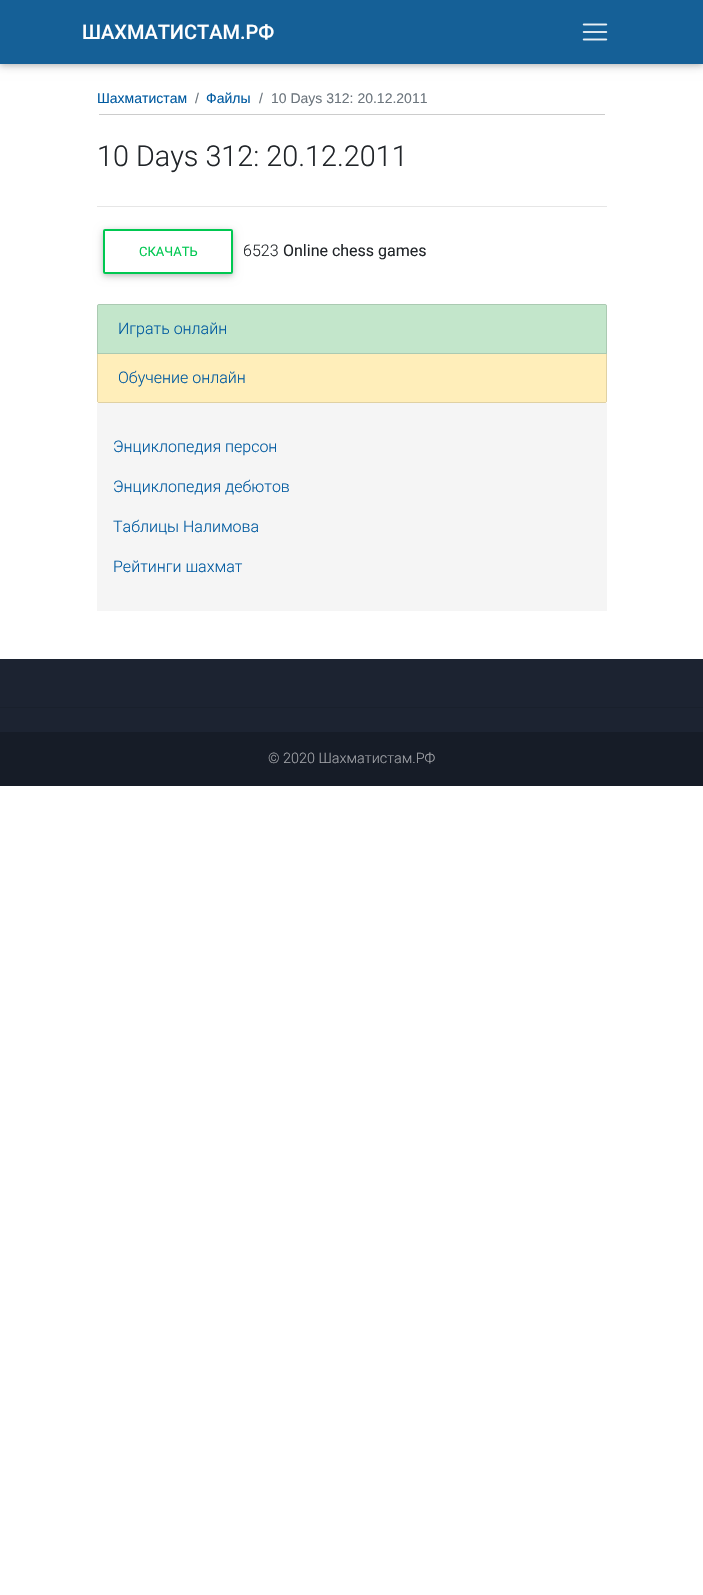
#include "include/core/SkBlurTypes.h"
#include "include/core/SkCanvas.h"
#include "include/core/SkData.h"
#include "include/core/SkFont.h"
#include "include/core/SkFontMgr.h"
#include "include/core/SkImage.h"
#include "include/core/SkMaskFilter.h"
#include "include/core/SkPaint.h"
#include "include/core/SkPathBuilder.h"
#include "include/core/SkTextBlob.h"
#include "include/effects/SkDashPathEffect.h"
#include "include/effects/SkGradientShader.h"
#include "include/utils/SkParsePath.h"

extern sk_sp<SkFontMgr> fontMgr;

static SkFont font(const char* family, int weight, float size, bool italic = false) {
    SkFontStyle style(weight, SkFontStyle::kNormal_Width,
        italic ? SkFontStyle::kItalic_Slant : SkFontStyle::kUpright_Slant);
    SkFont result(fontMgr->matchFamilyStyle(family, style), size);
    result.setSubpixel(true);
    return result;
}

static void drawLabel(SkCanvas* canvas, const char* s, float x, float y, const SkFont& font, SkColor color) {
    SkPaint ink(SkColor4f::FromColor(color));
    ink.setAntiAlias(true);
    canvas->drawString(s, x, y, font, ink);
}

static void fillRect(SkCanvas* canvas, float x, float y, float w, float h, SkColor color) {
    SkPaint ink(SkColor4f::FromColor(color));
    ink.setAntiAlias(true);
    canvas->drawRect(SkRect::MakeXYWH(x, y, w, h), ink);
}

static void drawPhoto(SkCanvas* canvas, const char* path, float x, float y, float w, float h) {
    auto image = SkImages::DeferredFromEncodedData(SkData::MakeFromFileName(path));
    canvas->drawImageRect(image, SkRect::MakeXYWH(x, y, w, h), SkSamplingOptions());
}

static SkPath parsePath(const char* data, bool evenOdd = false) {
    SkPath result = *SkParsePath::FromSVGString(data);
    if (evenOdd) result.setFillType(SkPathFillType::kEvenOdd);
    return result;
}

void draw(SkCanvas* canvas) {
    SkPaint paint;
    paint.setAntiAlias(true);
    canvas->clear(0xFFFFFFFF);
    paint.setColor(0x1F000000);
    paint.setMaskFilter(SkMaskFilter::MakeBlur(kNormal_SkBlurStyle, 5));
    canvas->drawRect(SkRect::MakeXYWH(0, 2, 703, 64), paint);
    paint.setMaskFilter(nullptr);
    paint.setColor(0x29000000);
    paint.setMaskFilter(SkMaskFilter::MakeBlur(kNormal_SkBlurStyle, 2.5f));
    canvas->drawRect(SkRect::MakeXYWH(0, 2, 703, 64), paint);
    paint.setMaskFilter(nullptr);
    fillRect(canvas, 0, 0, 703, 64, 0xFF156097);
    SkFont font1 = font("Roboto", 500, 20);
    drawLabel(canvas, "ШАХМАТИСТАМ.РФ", 82, 39, font1, 0xFFFFFFFF);
    drawPhoto(canvas, "assets/img1.png", 582, 23, 26, 18);
    fillRect(canvas, 99, 114, 506, 1, 0xFFCCCCCC);
    SkFont font2 = font("Liberation Sans", 400, 14);
    drawLabel(canvas, "Шахматистам", 97, 103, font2, 0xFF005AA0);
    drawLabel(canvas, "/", 195, 103, font2, 0xFF6C757D);
    drawLabel(canvas, "Файлы", 206, 103, font2, 0xFF005AA0);
    drawLabel(canvas, "/", 259, 103, font2, 0xFF6C757D);
    drawLabel(canvas, "10 Days 312: 20.12.2011", 271, 103, font2, 0xFF6C757D);
    SkFont font3 = font("Roboto", 300, 28.75f);
    drawLabel(canvas, "10 Days 312: 20.12.2011", 97, 166, font3, 0xFF212529);
    fillRect(canvas, 97, 206, 510, 1, 0xFFE6E6E6);
    canvas->save();
    canvas->clipPath(parsePath("M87 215H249V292H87ZM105 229H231C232 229 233 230 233 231V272C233 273 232 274 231 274H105C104 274 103 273 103 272V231C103 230 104 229 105 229Z", true), true);
    paint.setColor(0x1F000000);
    paint.setMaskFilter(SkMaskFilter::MakeBlur(kNormal_SkBlurStyle, 5));
    canvas->drawRoundRect(SkRect::MakeXYWH(103, 231, 130, 45), 2, 2, paint);
    paint.setMaskFilter(nullptr);
    canvas->restore();
    canvas->save();
    canvas->clipPath(parsePath("M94 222H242V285H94ZM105 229H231C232 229 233 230 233 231V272C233 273 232 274 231 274H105C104 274 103 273 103 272V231C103 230 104 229 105 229Z", true), true);
    paint.setColor(0x29000000);
    paint.setMaskFilter(SkMaskFilter::MakeBlur(kNormal_SkBlurStyle, 2.5f));
    canvas->drawRoundRect(SkRect::MakeXYWH(103, 231, 130, 45), 2, 2, paint);
    paint.setMaskFilter(nullptr);
    canvas->restore();
    paint.setStroke(true);
    paint.setStrokeWidth(2);
    paint.setColor(0xFF00C851);
    canvas->drawRoundRect(SkRect::MakeXYWH(104, 230, 128, 43), 1, 1, paint);
    SkFont font4 = font("Roboto", 400, 13);
    drawLabel(canvas, "СКАЧАТЬ", 139, 256, font4, 0xFF00C851);
    SkFont font5 = font("Roboto", 300, 16);
    drawLabel(canvas, "6523", 243, 256, font5, 0xFF212529);
    SkFont font6 = font("Roboto", 400, 16);
    drawLabel(canvas, "Online chess games", 283, 256, font6, 0xFF212529);
    paint.setStroke(false);
    paint.setColor(0xFFC3E6CB);
    canvas->drawPath(parsePath("M99 304H605C606 304 607 305 607 306V354H97V306C97 305 98 304 99 304Z"), paint);
    paint.setStroke(true);
    paint.setStrokeWidth(1);
    paint.setColor(0x1F000000);
    canvas->drawPath(parsePath("M99 304.5H605C606 304.5 606.5 305 606.5 306V353.5H97.5V306C97.5 305 98 304.5 99 304.5Z"), paint);
    drawLabel(canvas, "Играть онлайн", 118, 334, font5, 0xFF005AA0);
    paint.setStroke(false);
    paint.setColor(0xFFFFEEBA);
    canvas->drawPath(parsePath("M97 354H607V401C607 402 606 403 605 403H99C98 403 97 402 97 401Z"), paint);
    fillRect(canvas, 606, 354, 1, 48, 0x1F000000);
    fillRect(canvas, 98, 402, 508, 1, 0x1F000000);
    fillRect(canvas, 97, 354, 1, 48, 0x1F000000);
    drawLabel(canvas, "Обучение онлайн", 118, 383, font5, 0xFF005AA0);
    fillRect(canvas, 97, 403, 510, 208, 0xFFF5F5F5);
    drawLabel(canvas, "Энциклопедия персон", 113, 452, font5, 0xFF005AA0);
    drawLabel(canvas, "Энциклопедия дебютов", 113, 492, font5, 0xFF005AA0);
    drawLabel(canvas, "Таблицы Налимова", 113, 532, font5, 0xFF005AA0);
    drawLabel(canvas, "Рейтинги шахмат", 113, 572, font5, 0xFF005AA0);
    fillRect(canvas, 0, 659, 703, 73, 0xFF1C2331);
    fillRect(canvas, 0, 707, 703, 1, 0xFF19202C);
    fillRect(canvas, 0, 732, 703, 54, 0xFF161C27);
    SkFont font7 = font("Roboto", 300, 14.4f);
    drawLabel(canvas, "© 2020 Шахматистам.РФ", 268, 763, font7, 0xFFA2A4A9);
}
